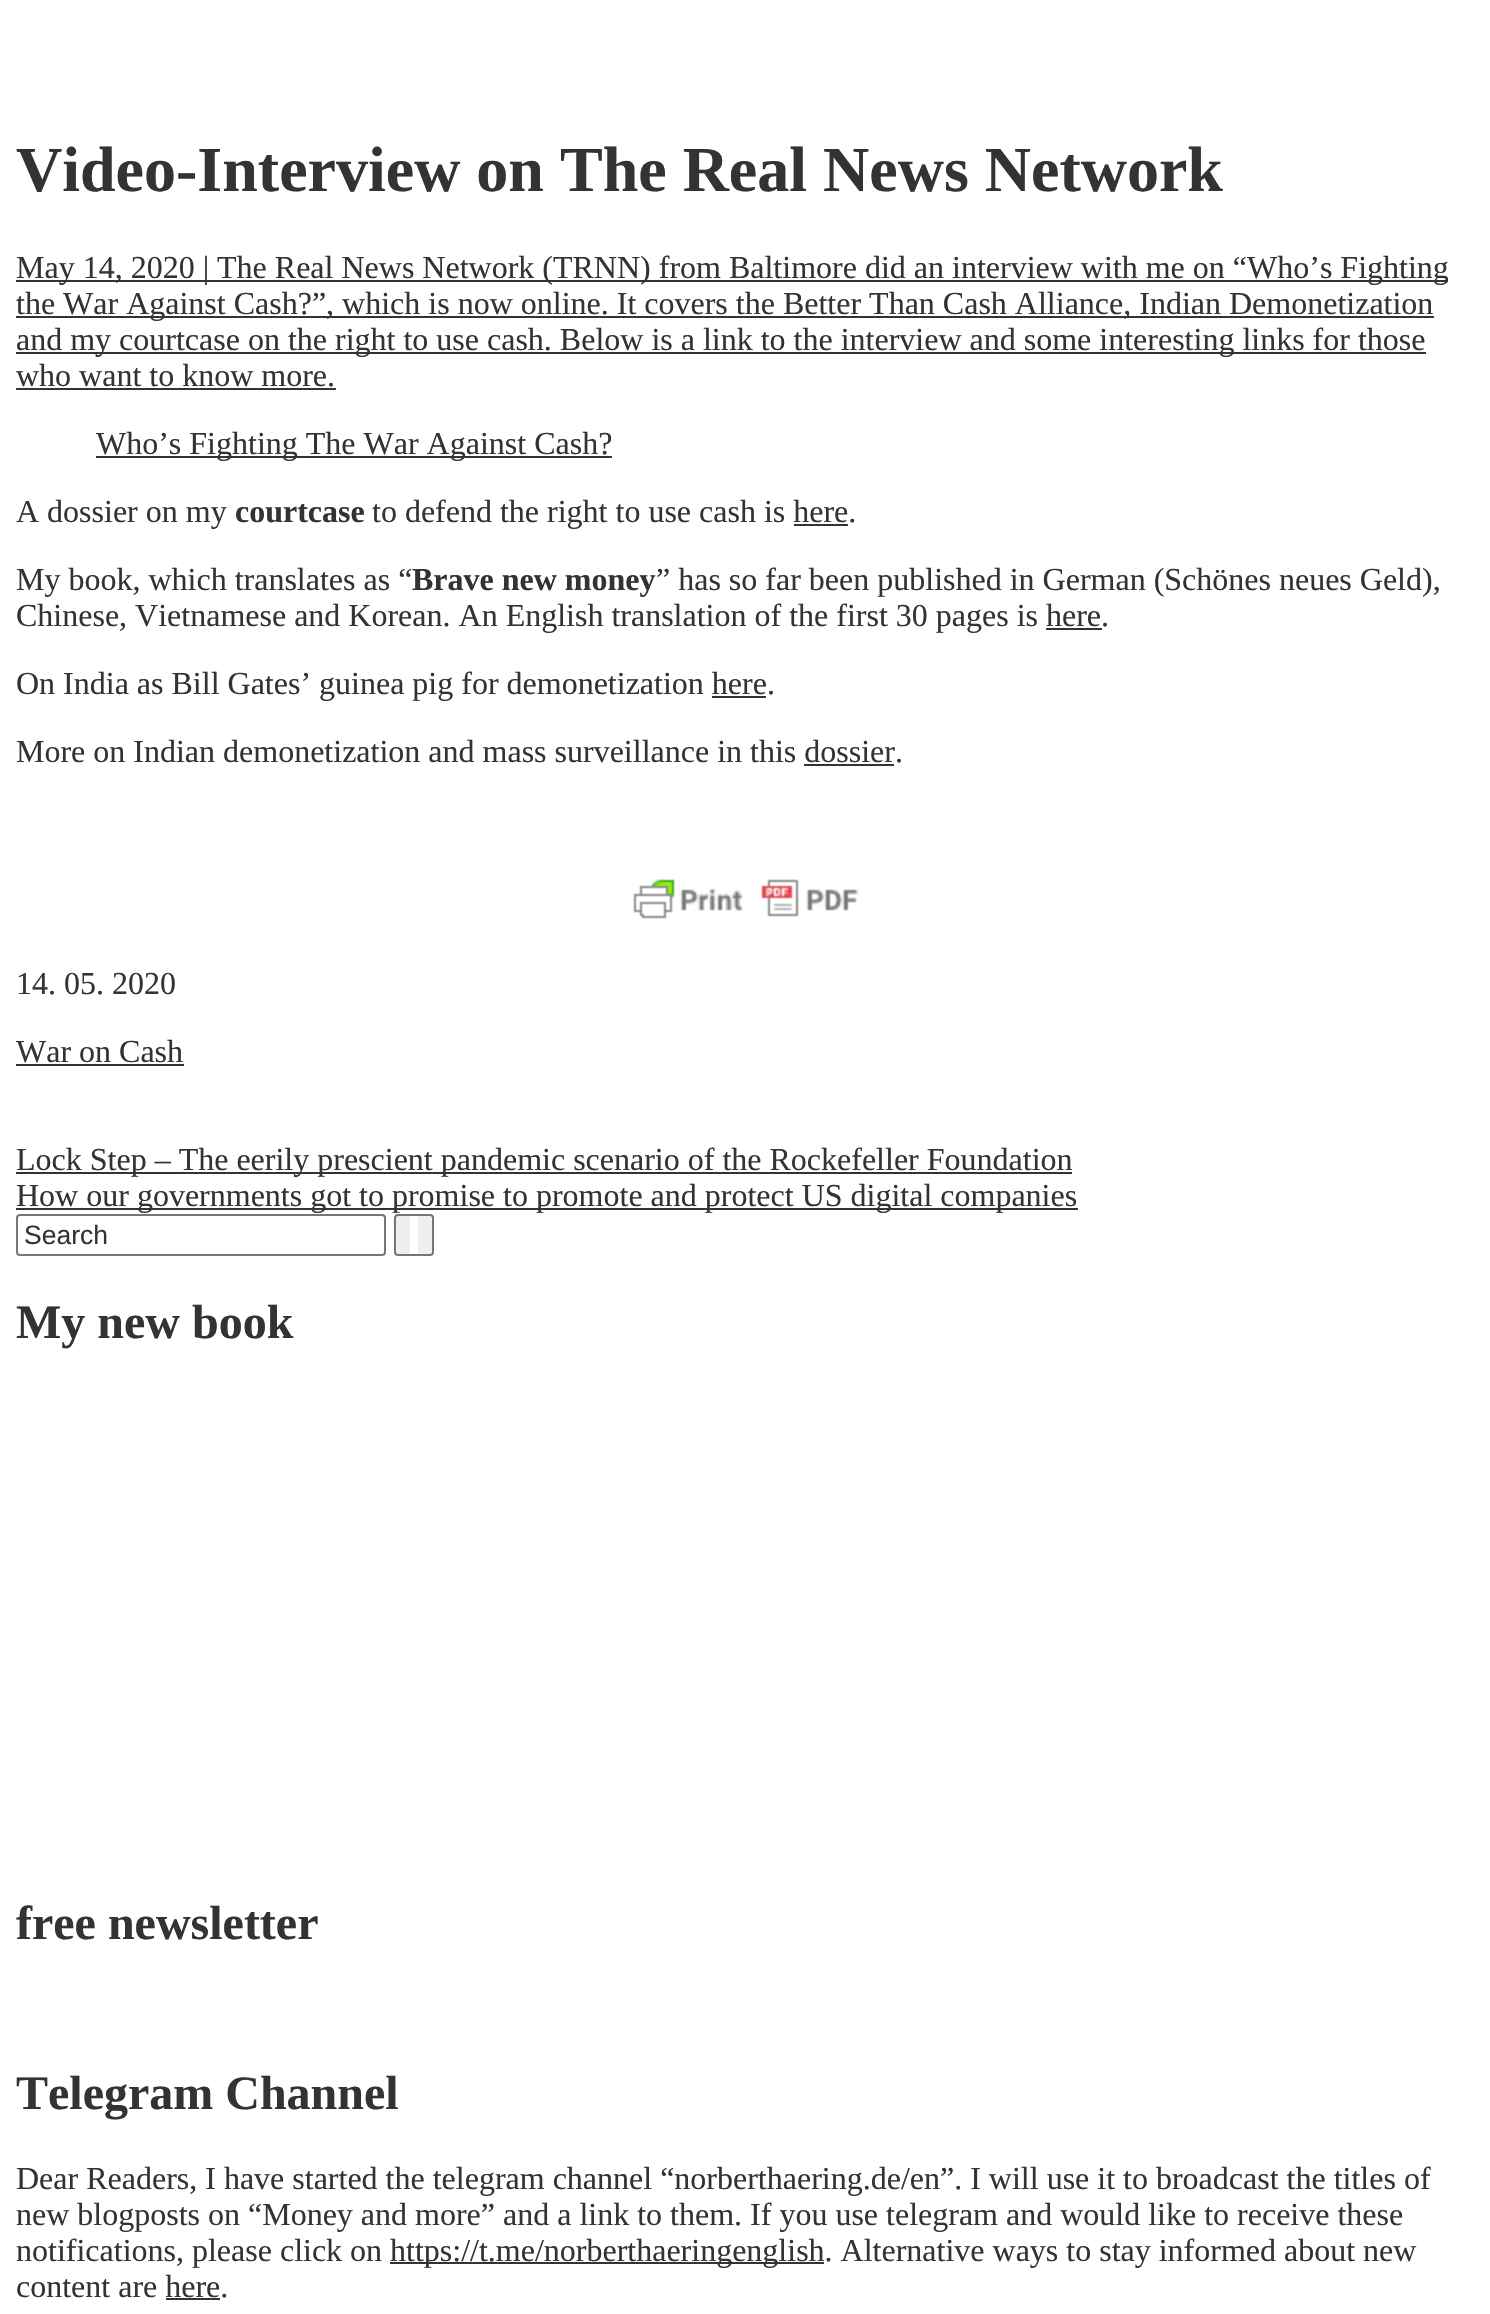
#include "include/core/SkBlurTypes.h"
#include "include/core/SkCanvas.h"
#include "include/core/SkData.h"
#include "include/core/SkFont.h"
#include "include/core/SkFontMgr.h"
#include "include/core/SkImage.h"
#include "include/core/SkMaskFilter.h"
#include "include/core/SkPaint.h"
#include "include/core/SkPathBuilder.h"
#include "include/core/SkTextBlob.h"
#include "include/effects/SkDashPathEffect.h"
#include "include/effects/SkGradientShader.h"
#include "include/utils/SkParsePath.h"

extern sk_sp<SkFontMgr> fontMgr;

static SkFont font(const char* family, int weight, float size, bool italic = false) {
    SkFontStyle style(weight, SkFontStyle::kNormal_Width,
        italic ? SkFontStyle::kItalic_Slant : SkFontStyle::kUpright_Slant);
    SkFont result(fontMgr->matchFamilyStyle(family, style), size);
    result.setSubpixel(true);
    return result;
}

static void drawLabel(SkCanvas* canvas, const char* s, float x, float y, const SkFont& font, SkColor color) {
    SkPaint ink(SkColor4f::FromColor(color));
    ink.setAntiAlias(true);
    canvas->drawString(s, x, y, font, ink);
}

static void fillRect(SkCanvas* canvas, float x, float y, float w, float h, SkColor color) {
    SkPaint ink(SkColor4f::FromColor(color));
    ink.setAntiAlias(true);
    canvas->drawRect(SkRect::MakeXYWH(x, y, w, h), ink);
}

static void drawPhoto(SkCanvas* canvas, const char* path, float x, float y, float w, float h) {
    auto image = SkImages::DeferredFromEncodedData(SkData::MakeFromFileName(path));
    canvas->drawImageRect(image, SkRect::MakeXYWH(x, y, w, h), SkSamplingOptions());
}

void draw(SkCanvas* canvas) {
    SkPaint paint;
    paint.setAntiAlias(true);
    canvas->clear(0xFFFFFFFF);
    SkFont font1 = font("Liberation Serif", 700, 64);
    drawLabel(canvas, "Video-Interview on The Real News Network", 16, 191, font1, 0xFF333333);
    fillRect(canvas, 16, 280, 1432, 2, 0xFF333333);
    SkFont font2 = font("Liberation Serif", 400, 32);
    drawLabel(canvas, "May 14, 2020 | The Real News Network (TRNN) from Baltimore did an interview with me on “Who’s Fighting", 16, 278, font2, 0xFF333333);
    fillRect(canvas, 16, 316, 1418, 2, 0xFF333333);
    drawLabel(canvas, "the War Against Cash?”, which is now online. It covers the Better Than Cash Alliance, Indian Demonetization", 16, 314, font2, 0xFF333333);
    fillRect(canvas, 16, 352, 1410, 2, 0xFF333333);
    drawLabel(canvas, "and my courtcase on the right to use cash. Below is a link to the interview and some interesting links for those", 16, 350, font2, 0xFF333333);
    drawLabel(canvas, "who want to know more.", 16, 386, font2, 0xFF333333);
    fillRect(canvas, 16, 388, 320, 2, 0xFF333333);
    fillRect(canvas, 96, 456, 516, 2, 0xFF333333);
    drawLabel(canvas, "Who’s Fighting The War Against Cash?", 96, 454, font2, 0xFF333333);
    drawLabel(canvas, "A dossier on my", 16, 522, font2, 0xFF333333);
    SkFont font3 = font("Liberation Serif", 700, 32);
    drawLabel(canvas, "courtcase", 235, 522, font3, 0xFF333333);
    drawLabel(canvas, "to defend the right to use cash is here.", 372, 522, font2, 0xFF333333);
    fillRect(canvas, 794, 524, 54, 2, 0xFF333333);
    drawLabel(canvas, "My book, which translates as “", 16, 590, font2, 0xFF333333);
    drawLabel(canvas, "Brave new money", 412, 590, font3, 0xFF333333);
    drawLabel(canvas, "” has so far been published in German (Schönes neues Geld),", 656, 590, font2, 0xFF333333);
    drawLabel(canvas, "Chinese, Vietnamese and Korean. An English translation of the first 30 pages is here.", 16, 626, font2, 0xFF333333);
    fillRect(canvas, 1046, 628, 56, 2, 0xFF333333);
    drawLabel(canvas, "On India as Bill Gates’ guinea pig for demonetization here.", 16, 694, font2, 0xFF333333);
    fillRect(canvas, 712, 696, 54, 2, 0xFF333333);
    drawLabel(canvas, "More on Indian demonetization and mass surveillance in this dossier.", 16, 762, font2, 0xFF333333);
    fillRect(canvas, 804, 764, 90, 2, 0xFF333333);
    drawPhoto(canvas, "assets/img1.png", 633, 879, 226, 40);
    drawLabel(canvas, "14. 05. 2020", 16, 994, font2, 0xFF333333);
    drawLabel(canvas, "War on Cash", 16, 1062, font2, 0xFF333333);
    fillRect(canvas, 16, 1064, 168, 2, 0xFF333333);
    fillRect(canvas, 16, 1172, 1056, 2, 0xFF333333);
    drawLabel(canvas, "Lock Step – The eerily prescient pandemic scenario of the Rockefeller Foundation", 16, 1170, font2, 0xFF333333);
    fillRect(canvas, 16, 1208, 1062, 2, 0xFF333333);
    drawLabel(canvas, "How our governments got to promise to promote and protect US digital companies", 16, 1206, font2, 0xFF333333);
    paint.setStroke(true);
    paint.setStrokeWidth(2);
    paint.setColor(0xFF767676);
    canvas->drawRoundRect(SkRect::MakeXYWH(17, 1215, 368, 40), 3, 3, paint);
    SkFont font4 = font("Liberation Sans", 400, 26.5f);
    drawLabel(canvas, "Search", 24, 1244, font4, 0xFF333333);
    paint.setStroke(false);
    paint.setColor(0xFFEFEFEF);
    canvas->drawRoundRect(SkRect::MakeXYWH(395, 1215, 38, 40), 3, 3, paint);
    paint.setStroke(true);
    paint.setColor(0xFF767676);
    canvas->drawRoundRect(SkRect::MakeXYWH(395, 1215, 38, 40), 3, 3, paint);
    fillRect(canvas, 410, 1216, 8, 38, 0xFFFFFFFF);
    SkFont font5 = font("Liberation Serif", 700, 48);
    drawLabel(canvas, "My new book", 16, 1338, font5, 0xFF333333);
    drawLabel(canvas, "free newsletter", 16, 1939, font5, 0xFF333333);
    drawLabel(canvas, "Telegram Channel", 16, 2109, font5, 0xFF333333);
    drawLabel(canvas, "Dear Readers, I have started the telegram channel “norberthaering.de/en”. I will use it to broadcast the titles of", 16, 2189, font2, 0xFF333333);
    drawLabel(canvas, "new blogposts on “Money and more” and a link to them. If you use telegram and would like to receive these", 16, 2225, font2, 0xFF333333);
    drawLabel(canvas, "notifications, please click on", 16, 2261, font2, 0xFF333333);
    fillRect(canvas, 390, 2262, 434, 2, 0xFF333333);
    drawLabel(canvas, "https://t.me/norberthaeringenglish. Alternative ways to stay informed about new", 390, 2261, font2, 0xFF333333);
    drawLabel(canvas, "content are here.", 16, 2297, font2, 0xFF333333);
    fillRect(canvas, 166, 2298, 54, 2, 0xFF333333);
}
